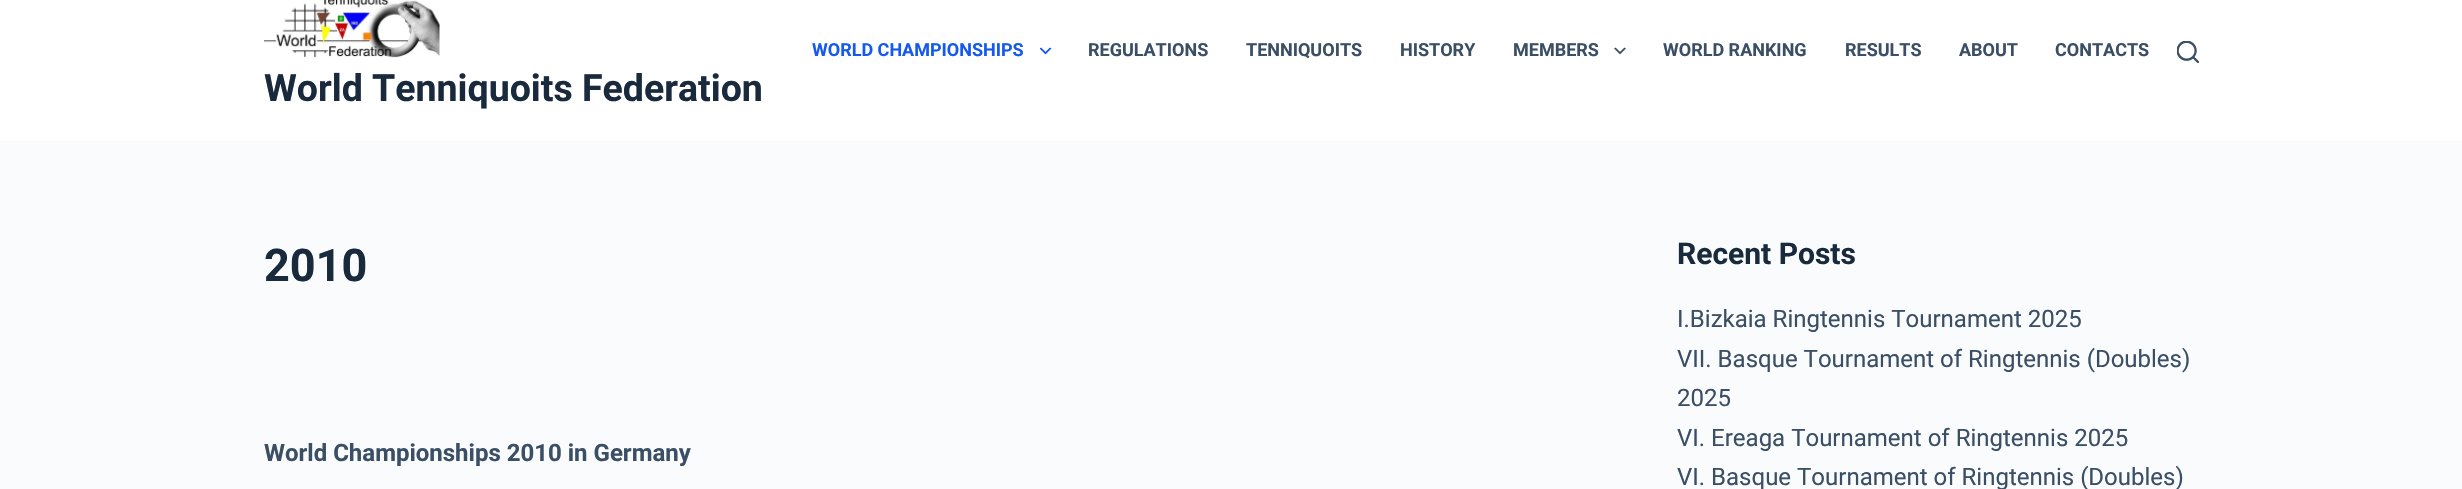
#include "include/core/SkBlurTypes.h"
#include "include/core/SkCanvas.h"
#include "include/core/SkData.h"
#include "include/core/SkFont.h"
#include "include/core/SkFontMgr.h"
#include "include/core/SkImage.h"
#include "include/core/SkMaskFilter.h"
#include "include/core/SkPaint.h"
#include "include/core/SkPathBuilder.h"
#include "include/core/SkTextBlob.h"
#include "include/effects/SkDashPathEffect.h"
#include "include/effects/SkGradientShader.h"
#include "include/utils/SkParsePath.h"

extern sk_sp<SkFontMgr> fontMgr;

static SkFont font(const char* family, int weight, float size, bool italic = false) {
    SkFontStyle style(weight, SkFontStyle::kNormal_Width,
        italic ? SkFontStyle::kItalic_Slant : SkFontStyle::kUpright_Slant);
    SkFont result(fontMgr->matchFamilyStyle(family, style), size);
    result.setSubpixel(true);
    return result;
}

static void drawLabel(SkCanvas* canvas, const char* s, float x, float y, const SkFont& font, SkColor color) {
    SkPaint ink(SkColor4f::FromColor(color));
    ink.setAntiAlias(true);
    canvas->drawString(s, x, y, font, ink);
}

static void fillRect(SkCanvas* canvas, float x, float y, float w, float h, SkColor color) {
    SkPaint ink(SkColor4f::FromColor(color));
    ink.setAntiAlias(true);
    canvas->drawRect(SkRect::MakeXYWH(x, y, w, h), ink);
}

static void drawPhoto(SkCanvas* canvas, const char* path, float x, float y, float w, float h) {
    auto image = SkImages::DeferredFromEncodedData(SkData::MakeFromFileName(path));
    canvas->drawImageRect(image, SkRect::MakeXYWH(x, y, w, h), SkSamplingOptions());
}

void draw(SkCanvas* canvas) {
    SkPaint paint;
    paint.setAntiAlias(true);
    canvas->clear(0xFFFAFBFC);
    fillRect(canvas, 0, 0, 2462, 141, 0xFFFFFFFF);
    SkFont font1 = font("Roboto", 700, 18);
    drawLabel(canvas, "WORLD CHAMPIONSHIPS", 812, 56, font1, 0xFF1559ED);
    drawPhoto(canvas, "assets/img1.png", 1040, 47, 12, 8);
    drawLabel(canvas, "REGULATIONS", 1088, 56, font1, 0xFF3A4F66);
    drawLabel(canvas, "TENNIQUOITS", 1246, 56, font1, 0xFF3A4F66);
    drawLabel(canvas, "HISTORY", 1400, 56, font1, 0xFF3A4F66);
    drawLabel(canvas, "MEMBERS", 1513, 56, font1, 0xFF3A4F66);
    drawPhoto(canvas, "assets/img2.png", 1614, 47, 12, 8);
    drawLabel(canvas, "WORLD RANKING", 1663, 56, font1, 0xFF3A4F66);
    drawLabel(canvas, "RESULTS", 1845, 56, font1, 0xFF3A4F66);
    drawLabel(canvas, "ABOUT", 1959, 56, font1, 0xFF3A4F66);
    drawLabel(canvas, "CONTACTS", 2055, 56, font1, 0xFF3A4F66);
    drawPhoto(canvas, "assets/img3.png", 2177, 41, 22, 22);
    drawPhoto(canvas, "assets/img4.png", 264, 0, 176, 58);
    SkFont font2 = font("Roboto", 700, 37.5f);
    drawLabel(canvas, "World Tenniquoits Federation", 264, 101, font2, 0xFF192A3D);
    SkFont font3 = font("Roboto", 700, 45);
    drawLabel(canvas, "2010", 264, 281, font3, 0xFF192A3D);
    SkFont font4 = font("Roboto", 700, 24);
    drawLabel(canvas, "World Championships 2010 in Germany", 264, 461, font4, 0xFF3A4F66);
    SkFont font5 = font("Roboto", 700, 30);
    drawLabel(canvas, "Recent Posts", 1677, 264, font5, 0xFF192A3D);
    SkFont font6 = font("Roboto", 400, 24);
    drawLabel(canvas, "I.Bizkaia Ringtennis Tournament 2025", 1677, 327, font6, 0xFF3A4F66);
    drawLabel(canvas, "VII. Basque Tournament of Ringtennis (Doubles)", 1677, 367, font6, 0xFF3A4F66);
    drawLabel(canvas, "2025", 1677, 406, font6, 0xFF3A4F66);
    drawLabel(canvas, "VI. Ereaga Tournament of Ringtennis 2025", 1677, 446, font6, 0xFF3A4F66);
    drawLabel(canvas, "VI. Basque Tournament of Ringtennis (Doubles)", 1677, 485, font6, 0xFF3A4F66);
}
